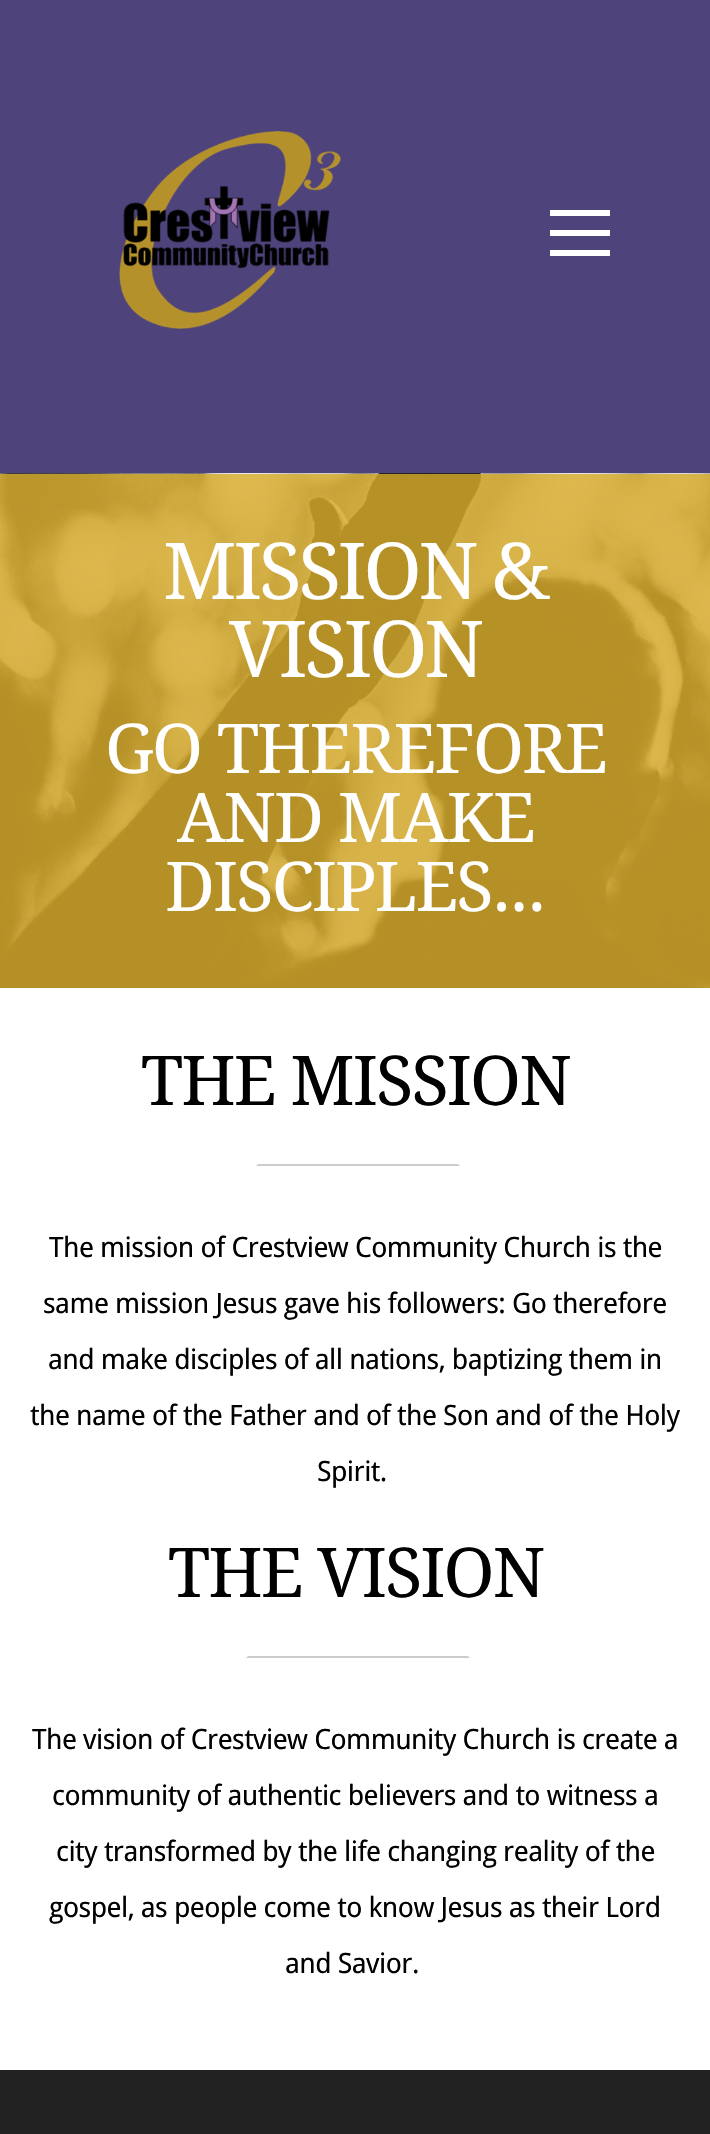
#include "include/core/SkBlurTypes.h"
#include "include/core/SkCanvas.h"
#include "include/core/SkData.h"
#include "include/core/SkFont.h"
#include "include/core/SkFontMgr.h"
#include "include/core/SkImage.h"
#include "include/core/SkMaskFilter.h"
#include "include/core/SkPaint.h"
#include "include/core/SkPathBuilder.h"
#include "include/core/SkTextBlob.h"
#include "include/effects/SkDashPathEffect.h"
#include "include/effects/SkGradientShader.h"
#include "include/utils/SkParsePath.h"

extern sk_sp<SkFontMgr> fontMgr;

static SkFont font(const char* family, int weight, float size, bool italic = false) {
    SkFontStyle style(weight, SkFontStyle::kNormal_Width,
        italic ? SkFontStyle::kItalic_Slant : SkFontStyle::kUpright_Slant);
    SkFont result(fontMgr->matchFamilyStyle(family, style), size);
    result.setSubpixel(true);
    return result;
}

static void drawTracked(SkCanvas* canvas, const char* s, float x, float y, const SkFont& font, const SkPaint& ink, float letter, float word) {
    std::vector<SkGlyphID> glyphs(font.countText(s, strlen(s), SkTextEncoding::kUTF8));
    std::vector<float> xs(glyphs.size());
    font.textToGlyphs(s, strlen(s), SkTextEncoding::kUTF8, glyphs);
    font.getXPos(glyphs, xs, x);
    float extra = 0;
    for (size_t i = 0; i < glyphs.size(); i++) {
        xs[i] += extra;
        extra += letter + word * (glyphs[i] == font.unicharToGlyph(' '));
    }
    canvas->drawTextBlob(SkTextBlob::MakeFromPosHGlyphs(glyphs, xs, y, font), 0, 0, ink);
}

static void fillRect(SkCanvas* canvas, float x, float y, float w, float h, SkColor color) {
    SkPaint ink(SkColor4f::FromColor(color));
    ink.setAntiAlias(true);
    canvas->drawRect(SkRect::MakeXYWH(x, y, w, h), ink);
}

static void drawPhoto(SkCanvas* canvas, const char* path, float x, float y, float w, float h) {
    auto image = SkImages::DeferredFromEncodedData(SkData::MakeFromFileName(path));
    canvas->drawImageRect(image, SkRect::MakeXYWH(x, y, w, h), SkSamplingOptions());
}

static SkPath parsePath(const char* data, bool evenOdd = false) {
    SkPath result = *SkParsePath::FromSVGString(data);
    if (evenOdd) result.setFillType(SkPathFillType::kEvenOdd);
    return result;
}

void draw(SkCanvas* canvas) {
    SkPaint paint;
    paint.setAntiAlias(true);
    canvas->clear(0xFF4F437C);
    drawPhoto(canvas, "assets/img1.png", 119, 131, 222, 198);
    fillRect(canvas, 550, 210, 60, 6, 0xFFFFFFFF);
    fillRect(canvas, 550, 230, 60, 6, 0xFFFFFFFF);
    fillRect(canvas, 550, 250, 60, 6, 0xFFFFFFFF);
    drawPhoto(canvas, "assets/img2.png", 0, 473, 710, 515);
    SkFont font1 = font("Droid Serif", 400, 78.5f);
    paint.setColor(0xFFFFFFFF);
    drawTracked(canvas, "MISSION &", 163, 599, font1, paint, -3.25f, 0);
    drawTracked(canvas, "VISION", 229, 677, font1, paint, -3.25f, 0);
    SkFont font2 = font("Droid Serif", 400, 68.75f);
    drawTracked(canvas, "GO THEREFORE", 105, 773, font2, paint, -2, 0);
    drawTracked(canvas, "AND MAKE", 177, 842, font2, paint, -2, 0);
    drawTracked(canvas, "DISCIPLES...", 165, 911, font2, paint, -2, 0);
    fillRect(canvas, 0, 988, 710, 1082, 0xFFFFFFFF);
    paint.setColor(0xFF000000);
    drawTracked(canvas, "THE MISSION", 141, 1105, font2, paint, -2, 0);
    paint.setColor(0xFFCCCCCC);
    canvas->drawPath(parsePath("M460 1166H256L258 1164H458Z"), paint);
    SkFont font3 = font("Droid Sans", 400, 28);
    paint.setColor(0xFF000000);
    drawTracked(canvas, "The mission of Crestview Community Church is the", 49, 1257, font3, paint, -0.55f, 0);
    drawTracked(canvas, "same mission Jesus gave his followers: Go therefore", 43, 1313, font3, paint, -0.55f, 0);
    drawTracked(canvas, "and make disciples of all nations, baptizing them in", 48, 1369, font3, paint, -0.55f, 0);
    drawTracked(canvas, "the name of the Father and of the Son and of the Holy", 30, 1425, font3, paint, -0.55f, 0);
    drawTracked(canvas, "Spirit.", 317, 1481, font3, paint, -0.55f, 0);
    drawTracked(canvas, "THE VISION", 168, 1597, font2, paint, -2, 0);
    paint.setColor(0xFFCCCCCC);
    canvas->drawPath(parsePath("M470 1658H246L248 1656H468Z"), paint);
    paint.setColor(0xFF000000);
    drawTracked(canvas, "The vision of Crestview Community Church is create a", 32, 1749, font3, paint, -0.55f, 0);
    drawTracked(canvas, "community of authentic believers and to witness a", 52, 1805, font3, paint, -0.55f, 0);
    drawTracked(canvas, "city transformed by the life changing reality of the", 56, 1861, font3, paint, -0.55f, 0);
    drawTracked(canvas, "gospel, as people come to know Jesus as their Lord", 49, 1917, font3, paint, -0.55f, 0);
    drawTracked(canvas, "and Savior.", 285, 1973, font3, paint, -0.55f, 0);
    fillRect(canvas, 0, 2070, 710, 64, 0xFF222222);
}
